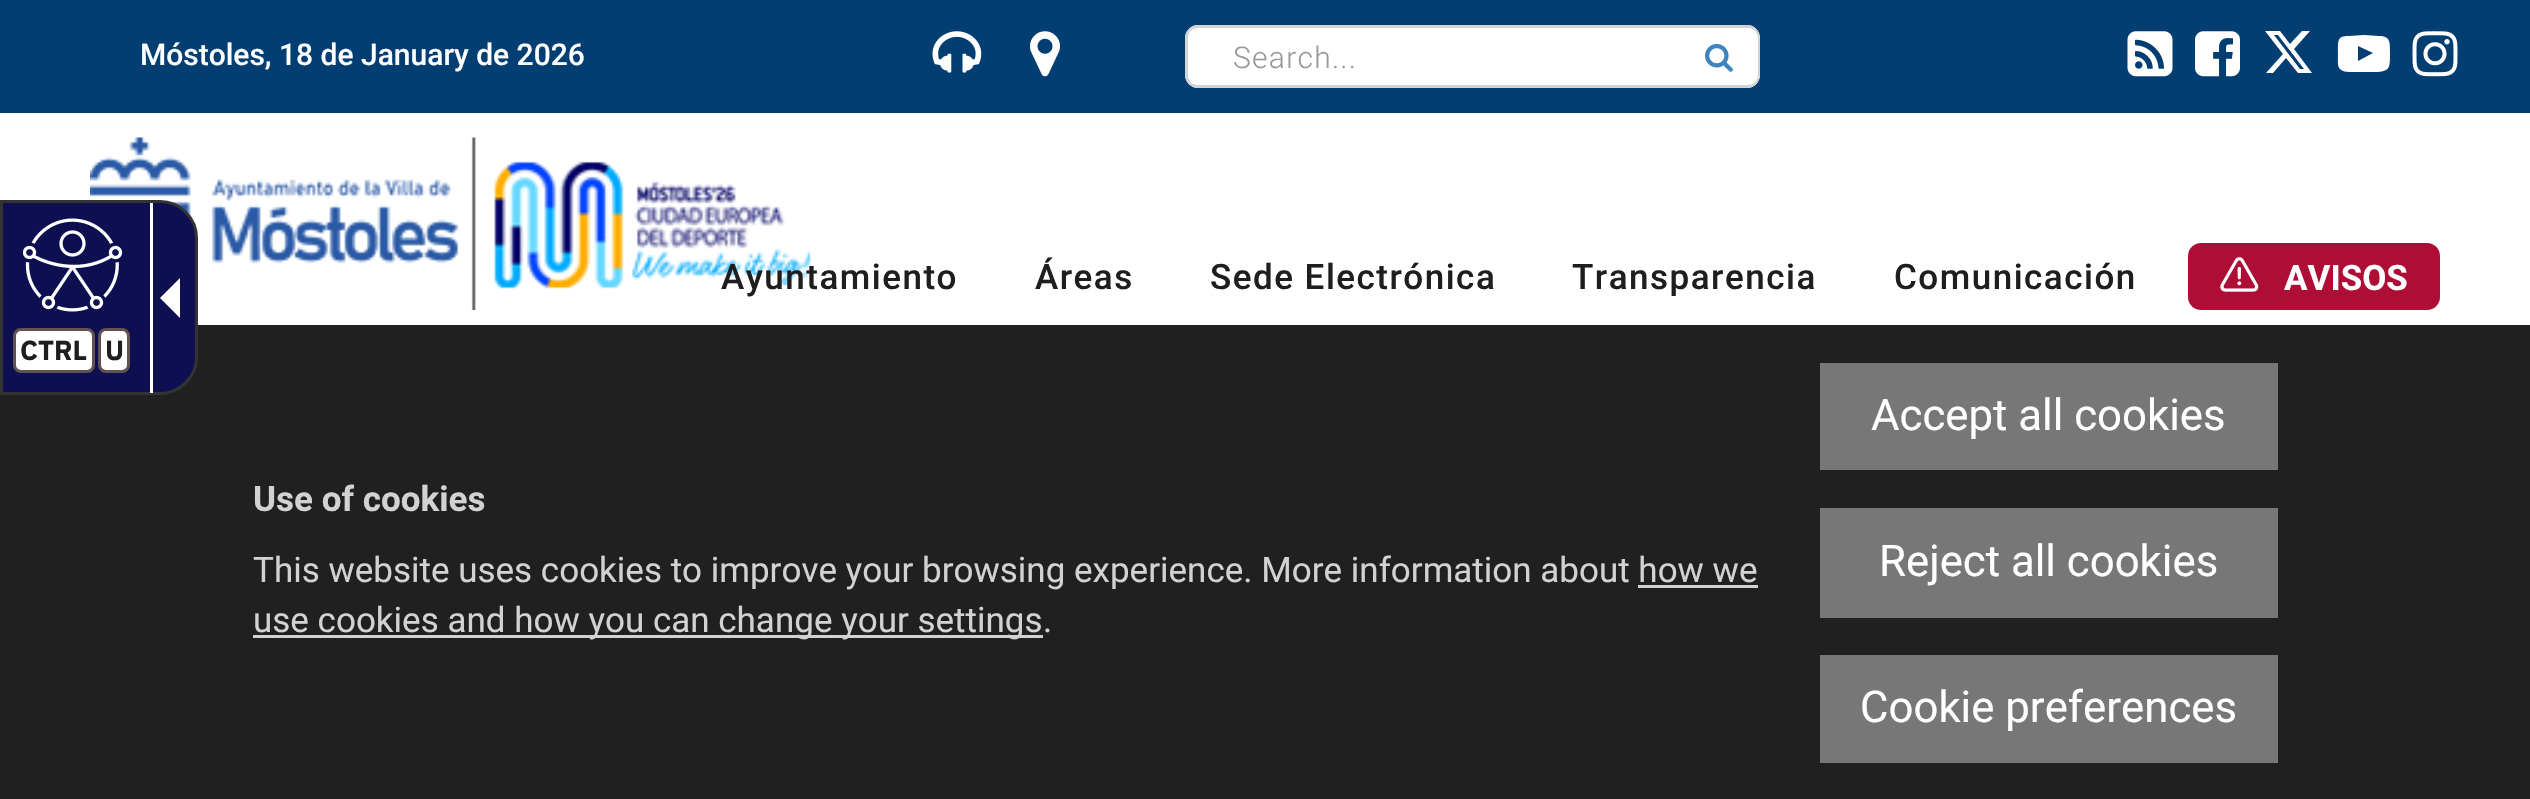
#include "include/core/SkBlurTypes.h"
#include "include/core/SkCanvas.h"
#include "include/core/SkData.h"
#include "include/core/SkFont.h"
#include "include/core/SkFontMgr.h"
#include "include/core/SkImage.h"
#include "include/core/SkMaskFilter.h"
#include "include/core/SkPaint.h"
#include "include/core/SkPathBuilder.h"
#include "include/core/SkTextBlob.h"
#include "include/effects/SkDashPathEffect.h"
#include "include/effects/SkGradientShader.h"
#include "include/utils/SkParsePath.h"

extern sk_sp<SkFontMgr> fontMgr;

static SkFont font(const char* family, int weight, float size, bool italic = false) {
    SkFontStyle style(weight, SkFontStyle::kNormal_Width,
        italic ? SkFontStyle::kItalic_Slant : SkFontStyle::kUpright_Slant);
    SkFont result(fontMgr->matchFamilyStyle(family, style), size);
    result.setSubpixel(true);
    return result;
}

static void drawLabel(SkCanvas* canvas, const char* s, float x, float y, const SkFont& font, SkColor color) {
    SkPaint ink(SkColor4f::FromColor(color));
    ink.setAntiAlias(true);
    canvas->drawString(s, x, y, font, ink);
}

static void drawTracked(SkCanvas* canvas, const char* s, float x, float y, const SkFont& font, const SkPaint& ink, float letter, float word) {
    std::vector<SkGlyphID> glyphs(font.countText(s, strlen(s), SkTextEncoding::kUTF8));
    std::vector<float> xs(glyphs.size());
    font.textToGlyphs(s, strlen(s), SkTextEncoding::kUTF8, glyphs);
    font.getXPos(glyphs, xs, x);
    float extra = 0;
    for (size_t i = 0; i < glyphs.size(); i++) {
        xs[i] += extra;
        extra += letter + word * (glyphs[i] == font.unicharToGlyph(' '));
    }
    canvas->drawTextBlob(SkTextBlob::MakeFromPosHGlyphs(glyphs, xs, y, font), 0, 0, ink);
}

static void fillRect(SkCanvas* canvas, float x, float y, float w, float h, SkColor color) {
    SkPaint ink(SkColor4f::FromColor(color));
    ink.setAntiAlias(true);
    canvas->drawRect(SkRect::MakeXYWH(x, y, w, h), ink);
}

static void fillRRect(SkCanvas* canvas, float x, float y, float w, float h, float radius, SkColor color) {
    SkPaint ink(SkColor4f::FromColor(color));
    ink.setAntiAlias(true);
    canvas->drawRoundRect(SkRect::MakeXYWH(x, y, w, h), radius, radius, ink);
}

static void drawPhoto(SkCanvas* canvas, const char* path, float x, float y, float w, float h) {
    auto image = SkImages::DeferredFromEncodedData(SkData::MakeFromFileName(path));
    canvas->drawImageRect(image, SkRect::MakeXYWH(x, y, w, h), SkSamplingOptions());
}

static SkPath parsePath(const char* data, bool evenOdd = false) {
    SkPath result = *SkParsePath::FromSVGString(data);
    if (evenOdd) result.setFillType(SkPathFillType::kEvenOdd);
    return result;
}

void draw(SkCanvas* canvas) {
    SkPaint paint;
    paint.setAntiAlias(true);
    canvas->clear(0xFFFFFFFF);
    fillRect(canvas, 0, 0, 2530, 113, 0xFF033E72);
    SkFont font1 = font("Roboto", 500, 30);
    drawLabel(canvas, "Móstoles, 18 de January de 2026", 140, 65, font1, 0xFFFFFFFF);
    drawPhoto(canvas, "assets/img1.png", 932, 31, 50, 42);
    drawPhoto(canvas, "assets/img2.png", 1030, 31, 30, 46);
    paint.setColor(0xFFFFFFFF);
    canvas->drawPath(parsePath("M1198 25H1683V88H1198C1191 88 1185 82 1185 75V38C1185 31 1191 25 1198 25Z"), paint);
    paint.setColor(0xFFD3D3D3);
    canvas->drawPath(parsePath("M1198 25H1682V88H1198C1191 88 1185 82 1185 75V38C1185 31 1191 25 1198 25ZM1198 28H1682V85H1198C1192 85 1188 81 1188 75V38C1188 32 1192 28 1198 28Z", true), paint);
    SkFont font2 = font("Roboto", 300, 30);
    paint.setColor(0xFF999999);
    drawTracked(canvas, "Search...", 1233, 68, font2, paint, 1.25f, 0);
    paint.setColor(0xFFFFFFFF);
    canvas->drawPath(parsePath("M1680 25H1747C1754 25 1760 31 1760 38V75C1760 82 1754 88 1747 88H1680Z"), paint);
    paint.setColor(0xFFD3D3D3);
    canvas->drawPath(parsePath("M1680 25H1748C1754 25 1760 31 1760 38V75C1760 82 1754 88 1748 88H1680ZM1680 28H1748C1753 28 1758 32 1758 38V75C1758 81 1753 85 1748 85H1680Z", true), paint);
    drawPhoto(canvas, "assets/img3.png", 1705, 43, 28, 29);
    drawPhoto(canvas, "assets/img4.png", 2127, 31, 46, 46);
    drawPhoto(canvas, "assets/img5.png", 2195, 31, 45, 46);
    paint.setColor(0xFFFFFFFF);
    canvas->drawPath(parsePath("M2302 31H2310L2294 49L2312 73H2298L2286 58L2273 73H2266L2283 54L2265 31H2280L2290 44ZM2300 69H2304L2278 35H2274Z"), paint);
    canvas->drawPath(parsePath("M2358 61L2373 53L2358 46ZM2364 35L2379 36C2391 36 2390 43 2390 54C2390 67 2390 71 2378 72H2349C2336 71 2338 65 2338 54C2338 40 2337 36 2349 36Z"), paint);
    drawPhoto(canvas, "assets/img6.png", 2412, 31, 46, 46);
    drawPhoto(canvas, "assets/img7.png", 90, 137, 721, 173);
    SkFont font3 = font("Roboto", 500, 35);
    paint.setColor(0xFF1E1E1E);
    drawTracked(canvas, "Ayuntamiento", 721, 289, font3, paint, 1.5f, 0);
    drawTracked(canvas, "Áreas", 1035, 289, font3, paint, 1.5f, 0);
    drawTracked(canvas, "Sede Electrónica", 1210, 289, font3, paint, 1.5f, 0);
    drawTracked(canvas, "Transparencia", 1572, 289, font3, paint, 1.5f, 0);
    drawTracked(canvas, "Comunicación", 1894, 289, font3, paint, 1.5f, 0);
    fillRRect(canvas, 2188, 243, 252, 67, 13, 0xFFAE0E36);
    drawPhoto(canvas, "assets/img8.png", 2220, 257, 39, 35);
    SkFont font4 = font("Roboto", 700, 35);
    drawLabel(canvas, "AVISOS", 2284, 290, font4, 0xFFFFFFFF);
    fillRect(canvas, 0, 325, 2530, 474, 0xFF202020);
    paint.setColor(0xFF0E0F51);
    canvas->drawPath(parsePath("M1.5 201.5H160C180 201.5 196.5 218 196.5 238V357C196.5 377 180 393.5 160 393.5H1.5Z"), paint);
    paint.setStroke(true);
    paint.setStrokeWidth(3);
    paint.setColor(0xFF333333);
    canvas->drawPath(parsePath("M1.5 201.5H160C180 201.5 196.5 218 196.5 238V357C196.5 377 180 393.5 160 393.5H1.5Z"), paint);
    paint.setStroke(false);
    paint.setColor(0xFFFFFFFF);
    canvas->drawPath(parsePath("M180 278V318L160 298Z"), paint);
    fillRect(canvas, 150, 203, 3, 190, 0xFFFFFFFF);
    drawPhoto(canvas, "assets/img9.png", 23, 218, 100, 94);
    canvas->drawRoundRect(SkRect::MakeXYWH(14.5f, 329.5f, 79, 42), 6.5f, 6.5f, paint);
    paint.setStroke(true);
    paint.setColor(0xFF635252);
    canvas->drawRoundRect(SkRect::MakeXYWH(14.5f, 329.5f, 79, 42), 6.5f, 6.5f, paint);
    SkFont font5 = font("IBM Plex Sans", 700, 27.5f);
    drawLabel(canvas, "CTRL", 20, 360, font5, 0xFF1E1E1E);
    paint.setStroke(false);
    paint.setColor(0xFFFFFFFF);
    canvas->drawRoundRect(SkRect::MakeXYWH(99.5f, 329.5f, 29, 42), 6.5f, 6.5f, paint);
    paint.setStroke(true);
    paint.setColor(0xFF635252);
    canvas->drawRoundRect(SkRect::MakeXYWH(99.5f, 329.5f, 29, 42), 6.5f, 6.5f, paint);
    drawLabel(canvas, "U", 105, 360, font5, 0xFF1E1E1E);
    drawLabel(canvas, "Use of cookies", 253, 511, font4, 0xFFD2D2D2);
    SkFont font6 = font("Roboto", 400, 35);
    drawLabel(canvas, "This website uses cookies to improve your browsing experience. More information about how we", 253, 582, font6, 0xFFD2D2D2);
    fillRect(canvas, 253, 635, 790, 3, 0xFFD2D2D2);
    drawLabel(canvas, "use cookies and how you can change your settings", 253, 632, font6, 0xFFD2D2D2);
    fillRect(canvas, 1638, 585, 120, 3, 0xFFD2D2D2);
    drawLabel(canvas, ".", 1043, 632, font6, 0xFFD2D2D2);
    fillRect(canvas, 1820, 363, 458, 107, 0xFF777777);
    SkFont font7 = font("Roboto", 400, 43.75f);
    drawLabel(canvas, "Accept all cookies", 1871, 430, font7, 0xFFFFFFFF);
    fillRect(canvas, 1820, 508, 458, 110, 0xFF777777);
    drawLabel(canvas, "Reject all cookies", 1879, 576, font7, 0xFFFFFFFF);
    fillRect(canvas, 1820, 655, 458, 108, 0xFF777777);
    drawLabel(canvas, "Cookie preferences", 1860, 722, font7, 0xFFFFFFFF);
}
